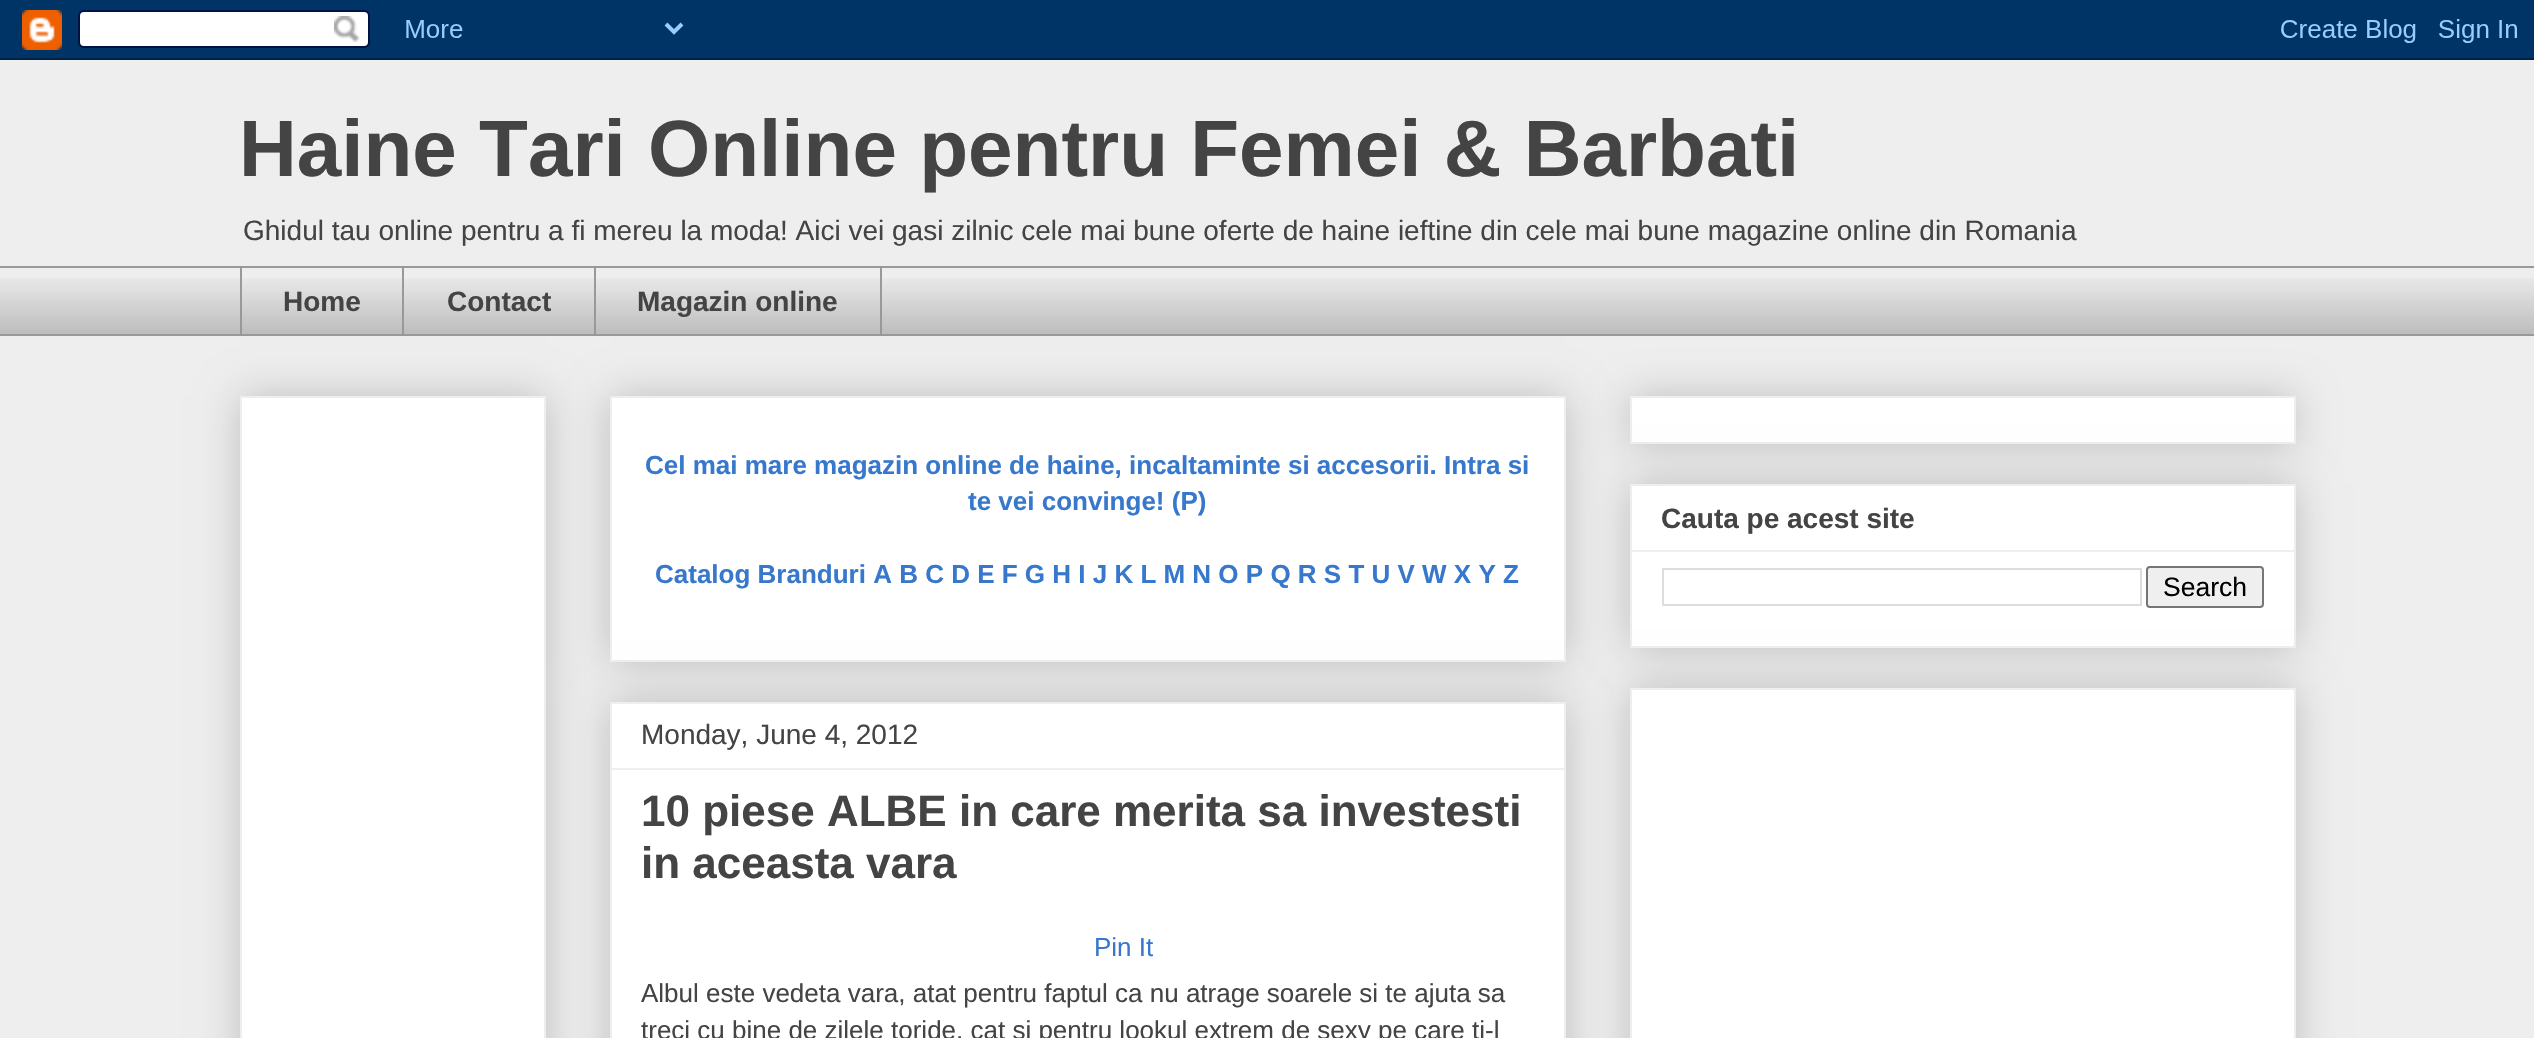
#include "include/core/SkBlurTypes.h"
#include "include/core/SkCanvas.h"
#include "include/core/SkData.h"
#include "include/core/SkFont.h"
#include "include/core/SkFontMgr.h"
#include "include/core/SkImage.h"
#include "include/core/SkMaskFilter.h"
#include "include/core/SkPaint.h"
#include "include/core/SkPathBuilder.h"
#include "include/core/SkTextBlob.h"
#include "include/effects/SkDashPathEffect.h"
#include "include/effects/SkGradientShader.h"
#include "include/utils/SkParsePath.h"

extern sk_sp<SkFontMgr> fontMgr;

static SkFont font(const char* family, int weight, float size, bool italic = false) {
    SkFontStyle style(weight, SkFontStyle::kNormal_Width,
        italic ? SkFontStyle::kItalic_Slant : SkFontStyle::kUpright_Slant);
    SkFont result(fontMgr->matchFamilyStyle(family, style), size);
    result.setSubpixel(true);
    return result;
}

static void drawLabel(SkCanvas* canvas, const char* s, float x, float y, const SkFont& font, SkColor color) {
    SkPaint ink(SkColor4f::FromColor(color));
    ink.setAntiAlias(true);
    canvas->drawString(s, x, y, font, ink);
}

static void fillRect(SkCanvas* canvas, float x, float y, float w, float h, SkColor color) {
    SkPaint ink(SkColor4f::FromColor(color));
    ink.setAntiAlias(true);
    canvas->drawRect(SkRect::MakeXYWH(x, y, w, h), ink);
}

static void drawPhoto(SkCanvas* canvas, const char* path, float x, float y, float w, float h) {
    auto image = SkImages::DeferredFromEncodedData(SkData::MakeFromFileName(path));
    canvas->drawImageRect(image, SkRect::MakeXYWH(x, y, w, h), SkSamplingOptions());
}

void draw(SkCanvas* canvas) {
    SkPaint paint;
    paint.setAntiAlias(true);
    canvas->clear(0xFFEEEEEE);
    drawPhoto(canvas, "assets/img1.png", 0, 0, 2534, 60);
    SkFont font1 = font("Liberation Sans", 700, 80);
    drawLabel(canvas, "Haine Tari Online pentru Femei & Barbati", 239, 176, font1, 0xFF444444);
    SkFont font2 = font("Liberation Sans", 400, 28);
    drawLabel(canvas, "Ghidul tau online pentru a fi mereu la moda! Aici vei gasi zilnic cele mai bune oferte de haine ieftine din cele mai bune magazine online din Romania", 243, 240, font2, 0xFF444444);
    drawPhoto(canvas, "assets/img2.png", 0, 278, 2534, 56);
    fillRect(canvas, 0, 266, 2534, 2, 0xFF999999);
    fillRect(canvas, 240, 266, 2, 70, 0xFF999999);
    SkFont font3 = font("Liberation Sans", 700, 28);
    drawLabel(canvas, "Home", 283, 311, font3, 0xFF444444);
    fillRect(canvas, 402, 266, 2, 70, 0xFF999999);
    drawLabel(canvas, "Contact", 447, 311, font3, 0xFF444444);
    paint.setStroke(true);
    paint.setStrokeWidth(2);
    paint.setColor(0xFF999999);
    canvas->drawRect(SkRect::MakeXYWH(595, 267, 286, 68), paint);
    drawLabel(canvas, "Magazin online", 637, 311, font3, 0xFF444444);
    fillRect(canvas, 0, 334, 2534, 2, 0xFF999999);
    paint.setStroke(false);
    paint.setColor(0x33000000);
    paint.setMaskFilter(SkMaskFilter::MakeBlur(kNormal_SkBlurStyle, 20));
    canvas->drawRect(SkRect::MakeXYWH(240, 396, 306, 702), paint);
    paint.setMaskFilter(nullptr);
    paint.setColor(0xFFFFFFFF);
    canvas->drawRect(SkRect::MakeXYWH(241, 397, 304, 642), paint);
    paint.setStroke(true);
    paint.setColor(0xFFEEEEEE);
    canvas->drawRect(SkRect::MakeXYWH(241, 397, 304, 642), paint);
    paint.setStroke(false);
    paint.setColor(0x33000000);
    paint.setMaskFilter(SkMaskFilter::MakeBlur(kNormal_SkBlurStyle, 20));
    canvas->drawRect(SkRect::MakeXYWH(610, 396, 956, 266), paint);
    paint.setMaskFilter(nullptr);
    paint.setColor(0xFFFFFFFF);
    canvas->drawRect(SkRect::MakeXYWH(611, 397, 954, 264), paint);
    paint.setStroke(true);
    paint.setColor(0xFFEEEEEE);
    canvas->drawRect(SkRect::MakeXYWH(611, 397, 954, 264), paint);
    SkFont font4 = font("Liberation Sans", 700, 26);
    drawLabel(canvas, "Cel mai mare magazin online de haine, incaltaminte si accesorii. Intra si", 645, 474, font4, 0xFF3778CD);
    drawLabel(canvas, "te vei convinge! (P)", 968, 510, font4, 0xFF3778CD);
    drawLabel(canvas, "Catalog Branduri A B C D E F G H I J K L M N O P Q R S T U V W X Y Z", 655, 583, font4, 0xFF3778CD);
    paint.setStroke(false);
    paint.setColor(0x33000000);
    paint.setMaskFilter(SkMaskFilter::MakeBlur(kNormal_SkBlurStyle, 20));
    canvas->drawRect(SkRect::MakeXYWH(610, 702, 956, 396), paint);
    paint.setMaskFilter(nullptr);
    paint.setColor(0xFFFFFFFF);
    canvas->drawRect(SkRect::MakeXYWH(611, 703, 954, 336), paint);
    paint.setStroke(true);
    paint.setColor(0xFFEEEEEE);
    canvas->drawRect(SkRect::MakeXYWH(611, 703, 954, 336), paint);
    drawLabel(canvas, "Monday, June 4, 2012", 641, 744, font2, 0xFF444444);
    fillRect(canvas, 612, 768, 952, 2, 0xFFEEEEEE);
    SkFont font5 = font("Liberation Sans", 700, 44);
    drawLabel(canvas, "10 piese ALBE in care merita sa investesti", 641, 826, font5, 0xFF444444);
    drawLabel(canvas, "in aceasta vara", 641, 878, font5, 0xFF444444);
    SkFont font6 = font("Liberation Sans", 400, 26);
    drawLabel(canvas, "Pin It", 1094, 956, font6, 0xFF3778CD);
    drawLabel(canvas, "Albul este vedeta vara, atat pentru faptul ca nu atrage soarele si te ajuta sa", 641, 1002, font6, 0xFF444444);
    drawLabel(canvas, "treci cu bine de zilele toride, cat si pentru lookul extrem de sexy pe care ti-l", 641, 1039, font6, 0xFF444444);
    paint.setStroke(false);
    paint.setColor(0x33000000);
    paint.setMaskFilter(SkMaskFilter::MakeBlur(kNormal_SkBlurStyle, 20));
    canvas->drawRect(SkRect::MakeXYWH(1630, 396, 666, 48), paint);
    paint.setMaskFilter(nullptr);
    paint.setColor(0xFFFFFFFF);
    canvas->drawRect(SkRect::MakeXYWH(1631, 397, 664, 46), paint);
    paint.setStroke(true);
    paint.setColor(0xFFEEEEEE);
    canvas->drawRect(SkRect::MakeXYWH(1631, 397, 664, 46), paint);
    paint.setStroke(false);
    paint.setColor(0x33000000);
    paint.setMaskFilter(SkMaskFilter::MakeBlur(kNormal_SkBlurStyle, 20));
    canvas->drawRect(SkRect::MakeXYWH(1630, 484, 666, 164), paint);
    paint.setMaskFilter(nullptr);
    paint.setColor(0xFFFFFFFF);
    canvas->drawRect(SkRect::MakeXYWH(1631, 485, 664, 162), paint);
    paint.setStroke(true);
    paint.setColor(0xFFEEEEEE);
    canvas->drawRect(SkRect::MakeXYWH(1631, 485, 664, 162), paint);
    drawLabel(canvas, "Cauta pe acest site", 1661, 528, font3, 0xFF444444);
    fillRect(canvas, 1632, 550, 662, 2, 0xFFEEEEEE);
    paint.setColor(0xFFDDDDDD);
    canvas->drawRect(SkRect::MakeXYWH(1663, 569, 478, 36), paint);
    paint.setStroke(false);
    paint.setColor(0xFFEFEFEF);
    canvas->drawRoundRect(SkRect::MakeXYWH(2147, 567, 116, 40), 3, 3, paint);
    paint.setStroke(true);
    paint.setColor(0xFF767676);
    canvas->drawRoundRect(SkRect::MakeXYWH(2147, 567, 116, 40), 3, 3, paint);
    SkFont font7 = font("Liberation Sans", 400, 26.5f);
    drawLabel(canvas, "Search", 2163, 596, font7, 0xFF000000);
    paint.setStroke(false);
    paint.setColor(0x33000000);
    paint.setMaskFilter(SkMaskFilter::MakeBlur(kNormal_SkBlurStyle, 20));
    canvas->drawRect(SkRect::MakeXYWH(1630, 688, 666, 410), paint);
    paint.setMaskFilter(nullptr);
    paint.setColor(0xFFFFFFFF);
    canvas->drawRect(SkRect::MakeXYWH(1631, 689, 664, 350), paint);
    paint.setStroke(true);
    paint.setColor(0xFFEEEEEE);
    canvas->drawRect(SkRect::MakeXYWH(1631, 689, 664, 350), paint);
}
